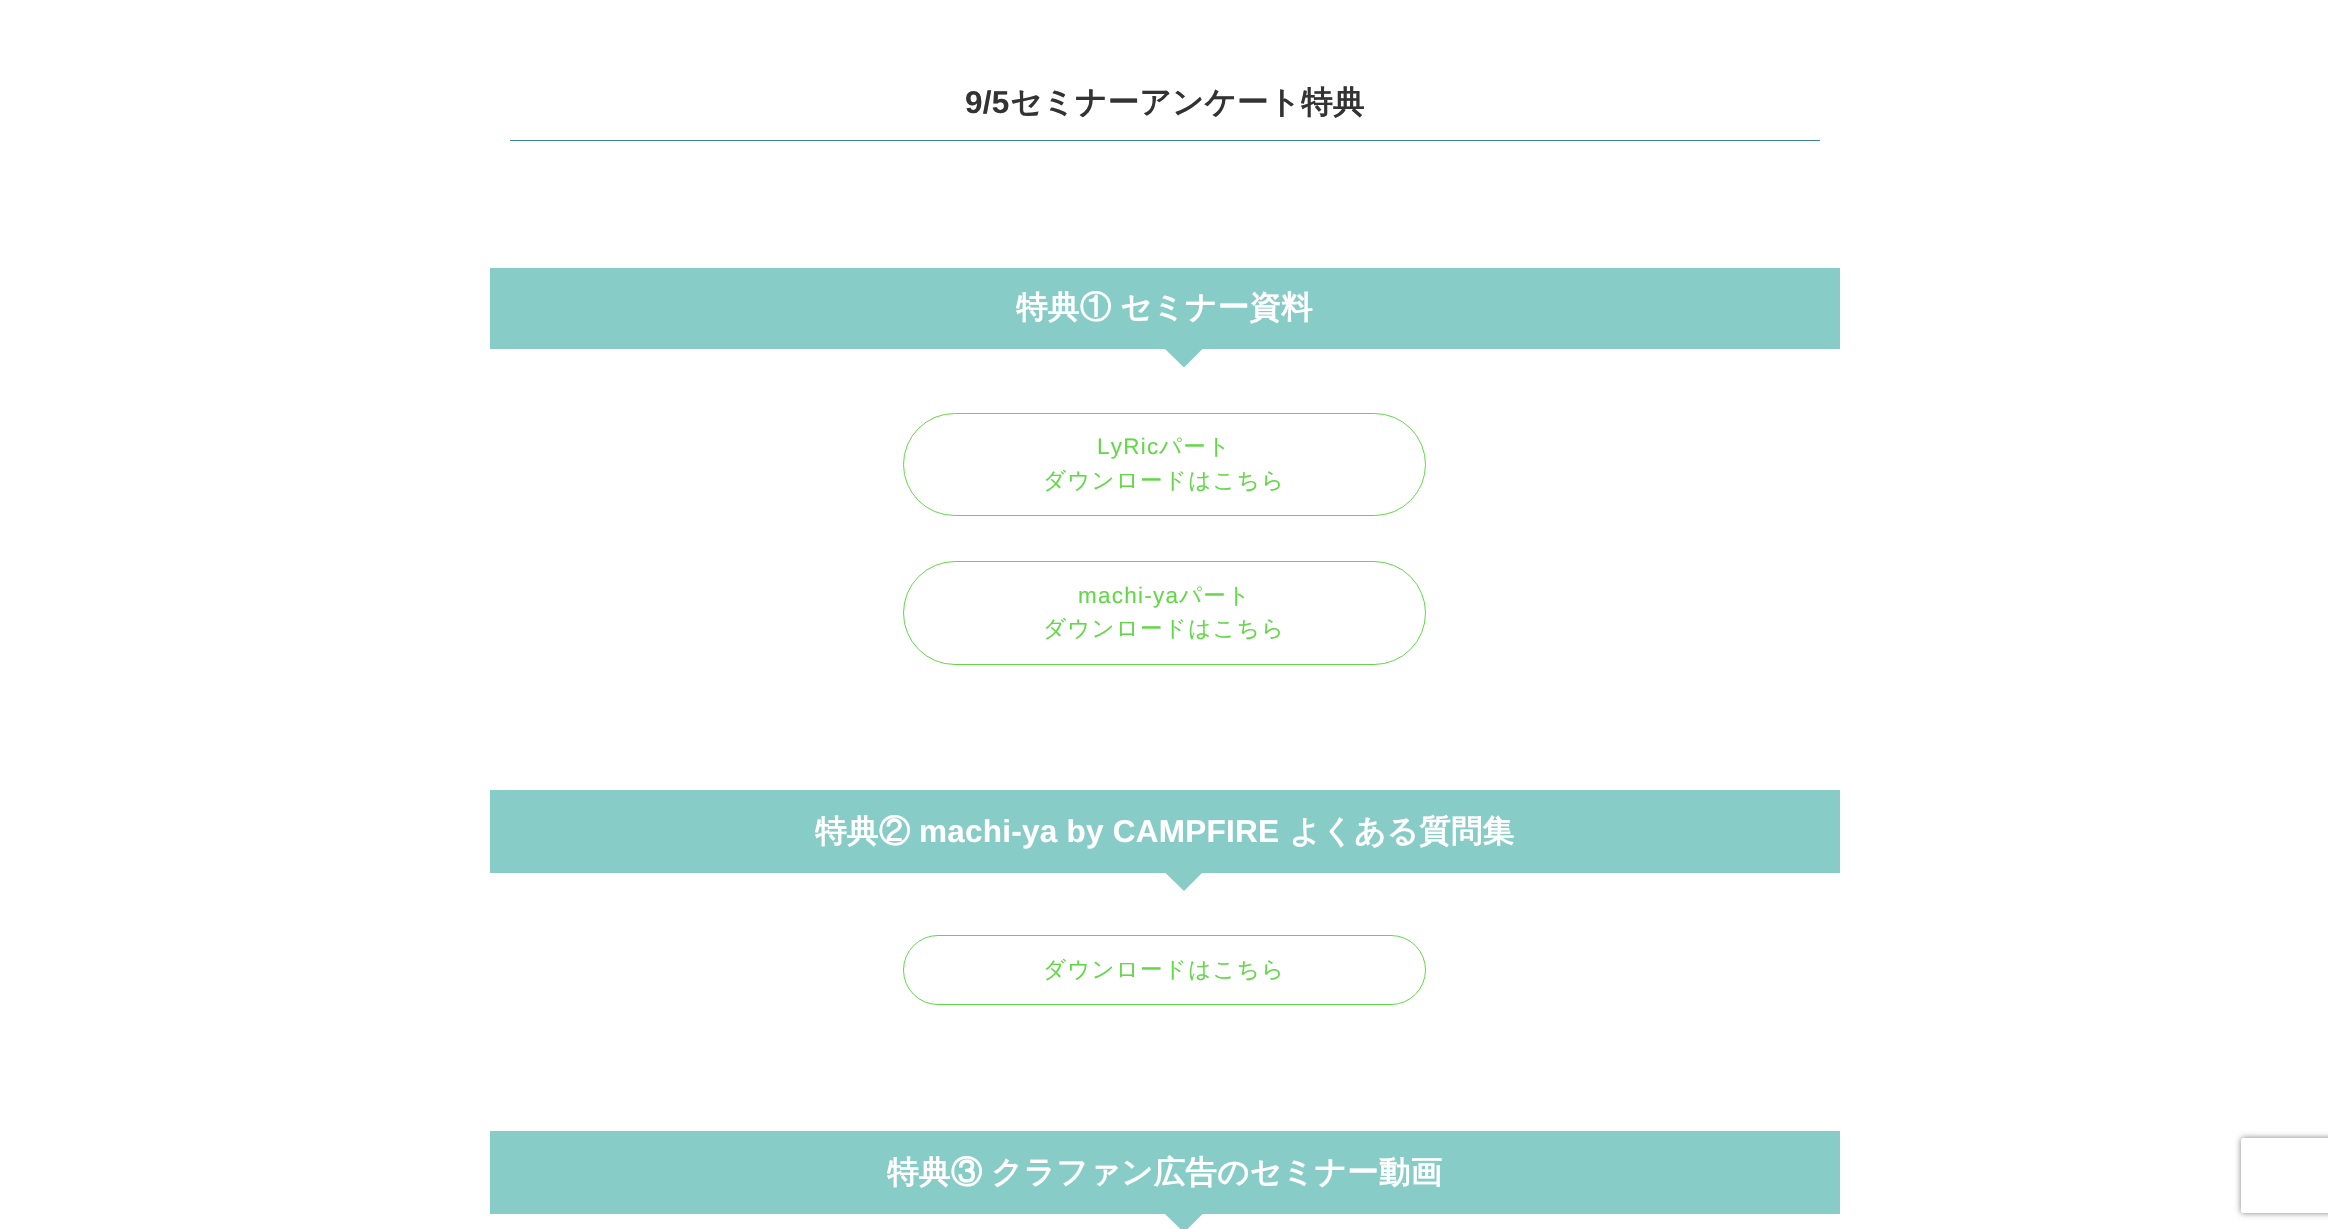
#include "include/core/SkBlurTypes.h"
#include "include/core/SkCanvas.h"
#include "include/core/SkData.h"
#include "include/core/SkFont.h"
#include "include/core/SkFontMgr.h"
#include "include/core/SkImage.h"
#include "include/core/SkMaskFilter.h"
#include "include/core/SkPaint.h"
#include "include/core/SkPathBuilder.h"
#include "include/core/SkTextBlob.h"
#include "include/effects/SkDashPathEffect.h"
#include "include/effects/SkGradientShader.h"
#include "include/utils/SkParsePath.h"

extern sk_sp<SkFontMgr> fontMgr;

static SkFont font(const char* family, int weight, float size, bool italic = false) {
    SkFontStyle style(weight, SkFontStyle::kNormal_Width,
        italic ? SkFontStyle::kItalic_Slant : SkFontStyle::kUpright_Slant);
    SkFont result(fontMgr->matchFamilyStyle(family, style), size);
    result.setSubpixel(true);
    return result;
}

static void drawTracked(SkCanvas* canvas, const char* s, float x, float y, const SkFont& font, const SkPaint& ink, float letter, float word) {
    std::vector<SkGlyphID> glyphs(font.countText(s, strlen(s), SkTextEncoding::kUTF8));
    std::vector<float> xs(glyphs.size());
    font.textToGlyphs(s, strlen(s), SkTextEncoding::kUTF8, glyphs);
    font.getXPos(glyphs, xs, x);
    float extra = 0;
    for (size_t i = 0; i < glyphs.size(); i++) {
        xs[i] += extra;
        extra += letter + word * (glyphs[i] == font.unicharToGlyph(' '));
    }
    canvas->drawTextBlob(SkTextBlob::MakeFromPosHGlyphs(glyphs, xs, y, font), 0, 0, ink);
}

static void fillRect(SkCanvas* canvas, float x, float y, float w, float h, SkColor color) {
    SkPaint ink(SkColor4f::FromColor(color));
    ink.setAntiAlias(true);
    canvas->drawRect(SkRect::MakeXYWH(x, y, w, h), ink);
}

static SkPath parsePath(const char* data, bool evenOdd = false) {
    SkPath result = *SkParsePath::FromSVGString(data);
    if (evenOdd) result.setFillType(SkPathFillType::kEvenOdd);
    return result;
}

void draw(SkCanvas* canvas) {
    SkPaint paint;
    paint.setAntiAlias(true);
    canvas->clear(0xFFFFFFFF);
    SkFont font1 = font("Liberation Sans", 700, 31.5f);
    paint.setColor(0xFF333333);
    drawTracked(canvas, "9/5", 965, 113, font1, paint, 0.25f, 0);
    SkFont font2 = font("WenQuanYi Zen Hei", 700, 31.5f);
    drawTracked(canvas, "セミナーアンケート特典", 1010, 113, font2, paint, 0.25f, 0);
    fillRect(canvas, 510, 140, 1310, 1, 0xFF3F81A0);
    fillRect(canvas, 490, 268, 1350, 81, 0xFF88CCC7);
    paint.setColor(0xFFFFFFFF);
    drawTracked(canvas, "特典① セミナー資料", 1016, 318, font2, paint, 0.25f, -1);
    paint.setColor(0xFF88CCC7);
    canvas->drawPath(parsePath("M1165 349H1202.5L1184 367.5Z"), paint);
    paint.setStroke(true);
    paint.setStrokeWidth(1);
    paint.setColor(0xFF62D847);
    canvas->drawRoundRect(SkRect::MakeXYWH(903.5f, 413.5f, 522, 102), 51, 51, paint);
    SkFont font3 = font("Liberation Sans", 400, 22.5f);
    paint.setStroke(false);
    drawTracked(canvas, "LyRic", 1097, 454, font3, paint, 1.25f, 0);
    SkFont font4 = font("WenQuanYi Zen Hei", 500, 22.5f);
    drawTracked(canvas, "パート", 1159, 454, font4, paint, 1.25f, 0);
    drawTracked(canvas, "ダウンロードはこちら", 1043, 488, font4, paint, 1.25f, 0);
    paint.setStroke(true);
    canvas->drawRoundRect(SkRect::MakeXYWH(903.5f, 561.5f, 522, 103), 51.5f, 51.5f, paint);
    paint.setStroke(false);
    drawTracked(canvas, "machi-ya", 1078, 603, font3, paint, 1.25f, 0);
    drawTracked(canvas, "パート", 1179, 603, font4, paint, 1.25f, 0);
    drawTracked(canvas, "ダウンロードはこちら", 1043, 636, font4, paint, 1.25f, 0);
    fillRect(canvas, 490, 790, 1350, 83, 0xFF88CCC7);
    paint.setColor(0xFFFFFFFF);
    drawTracked(canvas, "特典②", 815, 842, font2, paint, 0.25f, 0);
    drawTracked(canvas, "machi-ya by CAMPFIRE", 919, 842, font1, paint, 0.25f, 0);
    drawTracked(canvas, "よくある質問集", 1289, 842, font2, paint, 0.25f, 0);
    paint.setColor(0xFF88CCC7);
    canvas->drawPath(parsePath("M1165 872.5H1202.5L1184 891Z"), paint);
    paint.setStroke(true);
    paint.setColor(0xFF62D847);
    canvas->drawRoundRect(SkRect::MakeXYWH(903.5f, 935.5f, 522, 69), 34.5f, 34.5f, paint);
    paint.setStroke(false);
    drawTracked(canvas, "ダウンロードはこちら", 1043, 977, font4, paint, 1.25f, 0);
    fillRect(canvas, 490, 1131, 1350, 83, 0xFF88CCC7);
    paint.setColor(0xFFFFFFFF);
    drawTracked(canvas, "特典③", 887, 1183, font2, paint, 0.25f, 0);
    drawTracked(canvas, "クラファン広告のセミナー動画", 991, 1183, font2, paint, 0.25f, 0);
    paint.setColor(0xFF88CCC7);
    canvas->drawPath(parsePath("M1165 1214H1202.5L1184 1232.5Z"), paint);
    canvas->save();
    canvas->clipPath(parsePath("M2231 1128H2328V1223H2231ZM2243.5 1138H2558.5C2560 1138 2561 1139 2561 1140.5V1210.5C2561 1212 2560 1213 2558.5 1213H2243.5C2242 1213 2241 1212 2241 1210.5V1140.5C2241 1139 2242 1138 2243.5 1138Z", true), true);
    paint.setColor(0xFF808080);
    paint.setMaskFilter(SkMaskFilter::MakeBlur(kNormal_SkBlurStyle, 3));
    canvas->drawRoundRect(SkRect::MakeXYWH(2241, 1138, 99, 75), 2.5f, 2.5f, paint);
    paint.setMaskFilter(nullptr);
    canvas->restore();
}
